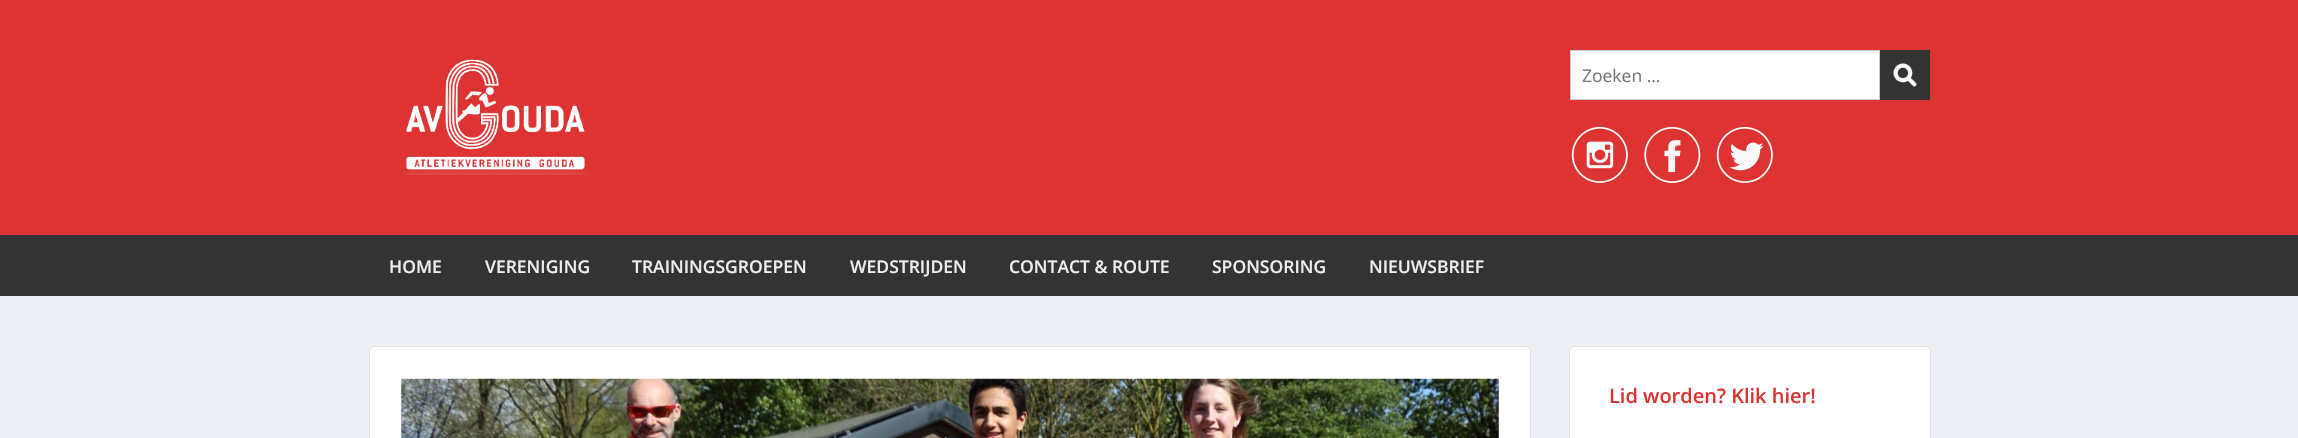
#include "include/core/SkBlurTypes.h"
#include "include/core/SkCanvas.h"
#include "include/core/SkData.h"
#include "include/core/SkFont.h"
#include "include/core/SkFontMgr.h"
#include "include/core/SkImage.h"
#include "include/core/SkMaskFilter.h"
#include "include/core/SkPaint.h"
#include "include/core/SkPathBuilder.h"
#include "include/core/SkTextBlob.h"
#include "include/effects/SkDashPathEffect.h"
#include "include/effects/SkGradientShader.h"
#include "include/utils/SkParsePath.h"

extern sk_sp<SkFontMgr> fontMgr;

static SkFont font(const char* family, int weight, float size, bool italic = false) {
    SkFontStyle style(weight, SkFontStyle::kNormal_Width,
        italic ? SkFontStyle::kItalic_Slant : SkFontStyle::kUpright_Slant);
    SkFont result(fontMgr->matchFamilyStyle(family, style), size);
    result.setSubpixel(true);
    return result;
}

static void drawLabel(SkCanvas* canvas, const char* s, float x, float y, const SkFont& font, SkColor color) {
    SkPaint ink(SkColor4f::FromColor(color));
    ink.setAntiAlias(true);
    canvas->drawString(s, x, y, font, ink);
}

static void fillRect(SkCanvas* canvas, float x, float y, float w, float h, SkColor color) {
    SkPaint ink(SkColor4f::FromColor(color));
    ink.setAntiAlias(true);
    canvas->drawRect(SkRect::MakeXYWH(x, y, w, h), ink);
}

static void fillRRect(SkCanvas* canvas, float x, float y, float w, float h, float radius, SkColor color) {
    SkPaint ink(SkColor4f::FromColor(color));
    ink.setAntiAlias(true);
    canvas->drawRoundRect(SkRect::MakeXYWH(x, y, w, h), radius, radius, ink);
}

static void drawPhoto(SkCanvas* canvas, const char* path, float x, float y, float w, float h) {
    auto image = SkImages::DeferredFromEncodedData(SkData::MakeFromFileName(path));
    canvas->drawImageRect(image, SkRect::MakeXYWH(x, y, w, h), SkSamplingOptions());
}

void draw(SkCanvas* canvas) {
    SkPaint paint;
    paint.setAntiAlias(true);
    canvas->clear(0xFFECF0F5);
    fillRect(canvas, 0, 0, 2298, 235, 0xFFDD3333);
    drawPhoto(canvas, "assets/img1.png", 403, 59, 187, 116);
    paint.setColor(0xFFFFFFFF);
    canvas->drawRect(SkRect::MakeXYWH(1570.5f, 50.5f, 309, 49), paint);
    paint.setStroke(true);
    paint.setStrokeWidth(1);
    paint.setColor(0xFFCCCCCC);
    canvas->drawRect(SkRect::MakeXYWH(1570.5f, 50.5f, 309, 49), paint);
    SkFont font1 = font("Open Sans", 400, 17.5f);
    drawLabel(canvas, "Zoeken …", 1582, 82, font1, 0xFF757575);
    fillRect(canvas, 1880, 50, 50, 50, 0xFF333333);
    drawPhoto(canvas, "assets/img2.png", 1893, 63, 24, 24);
    drawPhoto(canvas, "assets/img3.png", 1571, 126, 57, 57);
    drawPhoto(canvas, "assets/img4.png", 1644, 126, 57, 57);
    drawPhoto(canvas, "assets/img5.png", 1716, 126, 57, 57);
    fillRect(canvas, 0, 235, 2298, 61, 0xFF333333);
    SkFont font2 = font("Open Sans", 600, 17.5f);
    drawLabel(canvas, "HOME", 389, 273, font2, 0xFFEFEFEF);
    drawLabel(canvas, "VERENIGING", 485, 273, font2, 0xFFEFEFEF);
    drawLabel(canvas, "TRAININGSGROEPEN", 632, 273, font2, 0xFFEFEFEF);
    drawLabel(canvas, "WEDSTRIJDEN", 850, 273, font2, 0xFFEFEFEF);
    drawLabel(canvas, "CONTACT & ROUTE", 1009, 273, font2, 0xFFEFEFEF);
    drawLabel(canvas, "SPONSORING", 1212, 273, font2, 0xFFEFEFEF);
    drawLabel(canvas, "NIEUWSBRIEF", 1369, 273, font2, 0xFFEFEFEF);
    fillRRect(canvas, 369, 346, 1162, 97, 5, 0xFFFFFFFF);
    paint.setColor(0x1F000000);
    canvas->drawRoundRect(SkRect::MakeXYWH(369.5f, 346.5f, 1161, 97), 4.5f, 4.5f, paint);
    drawPhoto(canvas, "assets/img6.png", 401, 378, 1098, 60);
    fillRRect(canvas, 1569, 346, 362, 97, 5, 0xFFFFFFFF);
    canvas->drawRoundRect(SkRect::MakeXYWH(1569.5f, 346.5f, 361, 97), 4.5f, 4.5f, paint);
    SkFont font3 = font("Open Sans", 600, 20);
    drawLabel(canvas, "Lid worden? Klik hier!", 1609, 403, font3, 0xFFDD3333);
}
